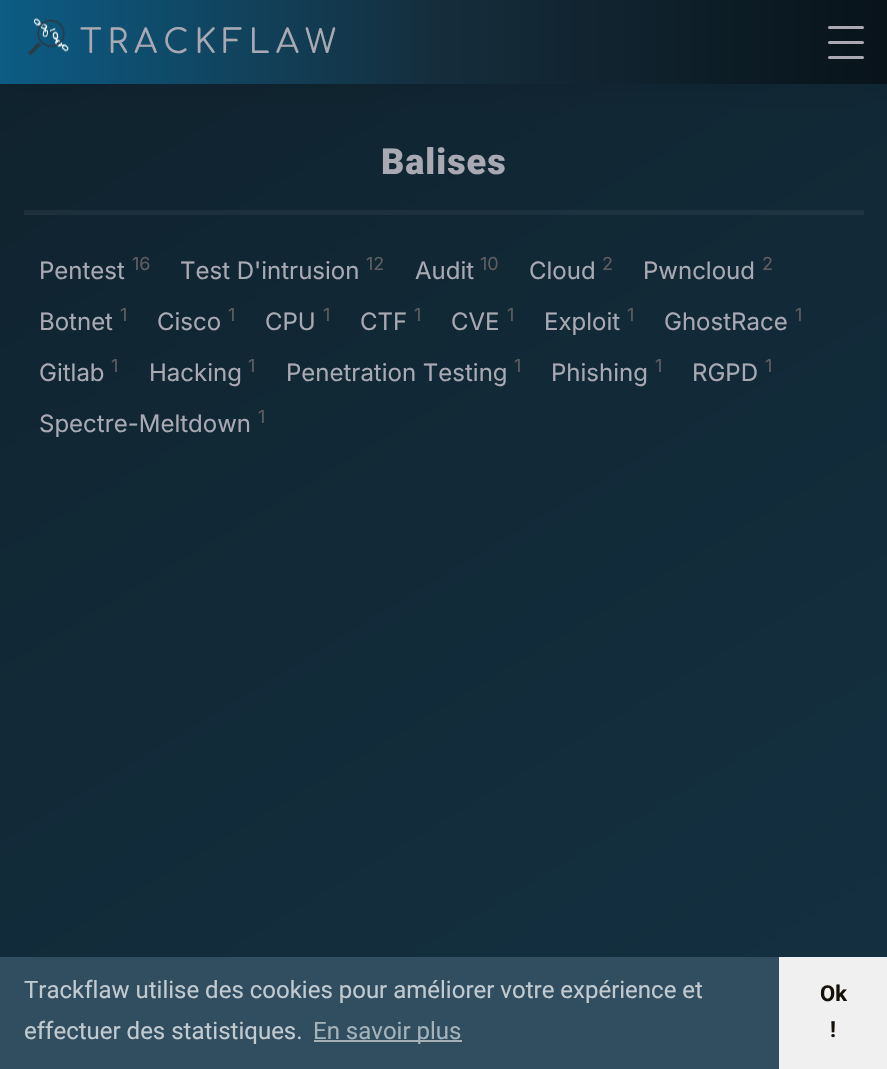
#include "include/core/SkBlurTypes.h"
#include "include/core/SkCanvas.h"
#include "include/core/SkData.h"
#include "include/core/SkFont.h"
#include "include/core/SkFontMgr.h"
#include "include/core/SkImage.h"
#include "include/core/SkMaskFilter.h"
#include "include/core/SkPaint.h"
#include "include/core/SkPathBuilder.h"
#include "include/core/SkTextBlob.h"
#include "include/effects/SkDashPathEffect.h"
#include "include/effects/SkGradientShader.h"
#include "include/utils/SkParsePath.h"

extern sk_sp<SkFontMgr> fontMgr;

static SkFont font(const char* family, int weight, float size, bool italic = false) {
    SkFontStyle style(weight, SkFontStyle::kNormal_Width,
        italic ? SkFontStyle::kItalic_Slant : SkFontStyle::kUpright_Slant);
    SkFont result(fontMgr->matchFamilyStyle(family, style), size);
    result.setSubpixel(true);
    return result;
}

static void drawLabel(SkCanvas* canvas, const char* s, float x, float y, const SkFont& font, SkColor color) {
    SkPaint ink(SkColor4f::FromColor(color));
    ink.setAntiAlias(true);
    canvas->drawString(s, x, y, font, ink);
}

static void drawTracked(SkCanvas* canvas, const char* s, float x, float y, const SkFont& font, const SkPaint& ink, float letter, float word) {
    std::vector<SkGlyphID> glyphs(font.countText(s, strlen(s), SkTextEncoding::kUTF8));
    std::vector<float> xs(glyphs.size());
    font.textToGlyphs(s, strlen(s), SkTextEncoding::kUTF8, glyphs);
    font.getXPos(glyphs, xs, x);
    float extra = 0;
    for (size_t i = 0; i < glyphs.size(); i++) {
        xs[i] += extra;
        extra += letter + word * (glyphs[i] == font.unicharToGlyph(' '));
    }
    canvas->drawTextBlob(SkTextBlob::MakeFromPosHGlyphs(glyphs, xs, y, font), 0, 0, ink);
}

static void fillRect(SkCanvas* canvas, float x, float y, float w, float h, SkColor color) {
    SkPaint ink(SkColor4f::FromColor(color));
    ink.setAntiAlias(true);
    canvas->drawRect(SkRect::MakeXYWH(x, y, w, h), ink);
}

static void fillRRect(SkCanvas* canvas, float x, float y, float w, float h, float radius, SkColor color) {
    SkPaint ink(SkColor4f::FromColor(color));
    ink.setAntiAlias(true);
    canvas->drawRoundRect(SkRect::MakeXYWH(x, y, w, h), radius, radius, ink);
}

static void drawPhoto(SkCanvas* canvas, const char* path, float x, float y, float w, float h) {
    auto image = SkImages::DeferredFromEncodedData(SkData::MakeFromFileName(path));
    canvas->drawImageRect(image, SkRect::MakeXYWH(x, y, w, h), SkSamplingOptions());
}

void draw(SkCanvas* canvas) {
    SkPaint paint;
    paint.setAntiAlias(true);
    canvas->clear(0xFFFFFFFF);
    {
        const SkColor colors[] = {0xFF0F222D, 0xFF122A38, 0xFF143142};
        const float stops[] = {0, 0.5f, 1};
        const SkPoint ends[] = {{90, -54}, {798, 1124}};
        paint.setShader(SkGradientShader::MakeLinear(ends, colors, stops, 3, SkTileMode::kClamp));
        paint.setAlpha(255);
    }
    canvas->drawRect(SkRect::MakeXYWH(0, 84, 887, 873), paint);
    {
        const SkColor colors[] = {0xFF1B2D38, 0xFF1E3542, 0xFF203B4B};
        const float stops[] = {0, 0.5f, 1};
        const SkPoint ends[] = {{90, -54}, {798, 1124}};
        paint.setShader(SkGradientShader::MakeLinear(ends, colors, stops, 3, SkTileMode::kClamp));
        paint.setAlpha(255);
    }
    canvas->drawRect(SkRect::MakeXYWH(24, 210, 840, 5), paint);
    paint.setShader(nullptr);
    paint.setColor(0x1A000000);
    paint.setMaskFilter(SkMaskFilter::MakeBlur(kNormal_SkBlurStyle, 18));
    canvas->drawRect(SkRect::MakeXYWH(0, 0, 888, 84), paint);
    paint.setMaskFilter(nullptr);
    {
        const SkColor colors[] = {0xFF0C5C85, 0xFF152D3B, 0xFF08131A};
        const float stops[] = {0, 0.5f, 1};
        const SkPoint ends[] = {{0, 42}, {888, 42}};
        paint.setShader(SkGradientShader::MakeLinear(ends, colors, stops, 3, SkTileMode::kClamp));
        paint.setAlpha(255);
    }
    canvas->drawRect(SkRect::MakeXYWH(0, 0, 887, 84), paint);
    drawPhoto(canvas, "assets/img1.png", 28, 18, 41, 38);
    SkFont font1 = font("Comfortaa", 400, 33);
    paint.setShader(nullptr);
    paint.setColor(0xFFA9A9B3);
    drawTracked(canvas, "TRACKFLAW", 80, 53, font1, paint, 6, 0);
    fillRRect(canvas, 828, 26, 36, 3, 1.5f, 0xFFA9A9B3);
    fillRRect(canvas, 828, 41, 36, 3, 1.5f, 0xFFA9A9B3);
    fillRRect(canvas, 828, 56, 36, 3, 1.5f, 0xFFA9A9B3);
    SkFont font2 = font("Roboto", 900, 36);
    drawTracked(canvas, "Balises", 381, 174, font2, paint, 1, 0);
    SkFont font3 = font("Inter", 400, 24);
    drawLabel(canvas, "Pentest", 39, 279, font3, 0xFFA9A9B3);
    SkFont font4 = font("Inter", 400, 18);
    drawLabel(canvas, "16", 132, 270, font4, 0xFF5D5D5F);
    drawLabel(canvas, "Test D'intrusion", 180, 279, font3, 0xFFA9A9B3);
    drawLabel(canvas, "12", 366, 270, font4, 0xFF5D5D5F);
    drawLabel(canvas, "Audit", 415, 279, font3, 0xFFA9A9B3);
    drawLabel(canvas, "10", 480, 270, font4, 0xFF5D5D5F);
    drawLabel(canvas, "Cloud", 529, 279, font3, 0xFFA9A9B3);
    drawLabel(canvas, "2", 602, 270, font4, 0xFF5D5D5F);
    drawLabel(canvas, "Pwncloud", 643, 279, font3, 0xFFA9A9B3);
    drawLabel(canvas, "2", 762, 270, font4, 0xFF5D5D5F);
    drawLabel(canvas, "Botnet", 39, 330, font3, 0xFFA9A9B3);
    drawLabel(canvas, "1", 120, 321, font4, 0xFF5D5D5F);
    drawLabel(canvas, "Cisco", 157, 330, font3, 0xFFA9A9B3);
    drawLabel(canvas, "1", 228, 321, font4, 0xFF5D5D5F);
    drawLabel(canvas, "CPU", 265, 330, font3, 0xFFA9A9B3);
    drawLabel(canvas, "1", 323, 321, font4, 0xFF5D5D5F);
    drawLabel(canvas, "CTF", 360, 330, font3, 0xFFA9A9B3);
    drawLabel(canvas, "1", 414, 321, font4, 0xFF5D5D5F);
    drawLabel(canvas, "CVE", 451, 330, font3, 0xFFA9A9B3);
    drawLabel(canvas, "1", 507, 321, font4, 0xFF5D5D5F);
    drawLabel(canvas, "Exploit", 544, 330, font3, 0xFFA9A9B3);
    drawLabel(canvas, "1", 627, 321, font4, 0xFF5D5D5F);
    drawLabel(canvas, "GhostRace", 664, 330, font3, 0xFFA9A9B3);
    drawLabel(canvas, "1", 795, 321, font4, 0xFF5D5D5F);
    drawLabel(canvas, "Gitlab", 39, 381, font3, 0xFFA9A9B3);
    drawLabel(canvas, "1", 111, 372, font4, 0xFF5D5D5F);
    drawLabel(canvas, "Hacking", 149, 381, font3, 0xFFA9A9B3);
    drawLabel(canvas, "1", 248, 372, font4, 0xFF5D5D5F);
    drawLabel(canvas, "Penetration Testing", 286, 381, font3, 0xFFA9A9B3);
    drawLabel(canvas, "1", 514, 372, font4, 0xFF5D5D5F);
    drawLabel(canvas, "Phishing", 551, 381, font3, 0xFFA9A9B3);
    drawLabel(canvas, "1", 655, 372, font4, 0xFF5D5D5F);
    drawLabel(canvas, "RGPD", 692, 381, font3, 0xFFA9A9B3);
    drawLabel(canvas, "1", 765, 372, font4, 0xFF5D5D5F);
    drawLabel(canvas, "Spectre-Meltdown", 39, 432, font3, 0xFFA9A9B3);
    drawLabel(canvas, "1", 258, 423, font4, 0xFF5D5D5F);
    fillRect(canvas, 0, 957, 779, 112, 0xFF304E5F);
    SkFont font5 = font("Roboto", 400, 24);
    drawLabel(canvas, "Trackflaw utilise des cookies pour améliorer votre expérience et", 24, 998, font5, 0xFFC1CACF);
    drawLabel(canvas, "effectuer des statistiques.", 24, 1039, font5, 0xFFC1CACF);
    fillRect(canvas, 314, 1040, 148, 2, 0xFFA4B1B9);
    drawLabel(canvas, "En savoir plus", 313, 1039, font5, 0xFFA4B2B9);
    fillRect(canvas, 779, 957, 108, 112, 0xFFF0F0F0);
    SkFont font6 = font("Roboto", 700, 22);
    drawLabel(canvas, "Ok", 820, 1001, font6, 0xFF161209);
    drawLabel(canvas, "!", 830, 1037, font6, 0xFF161209);
}
